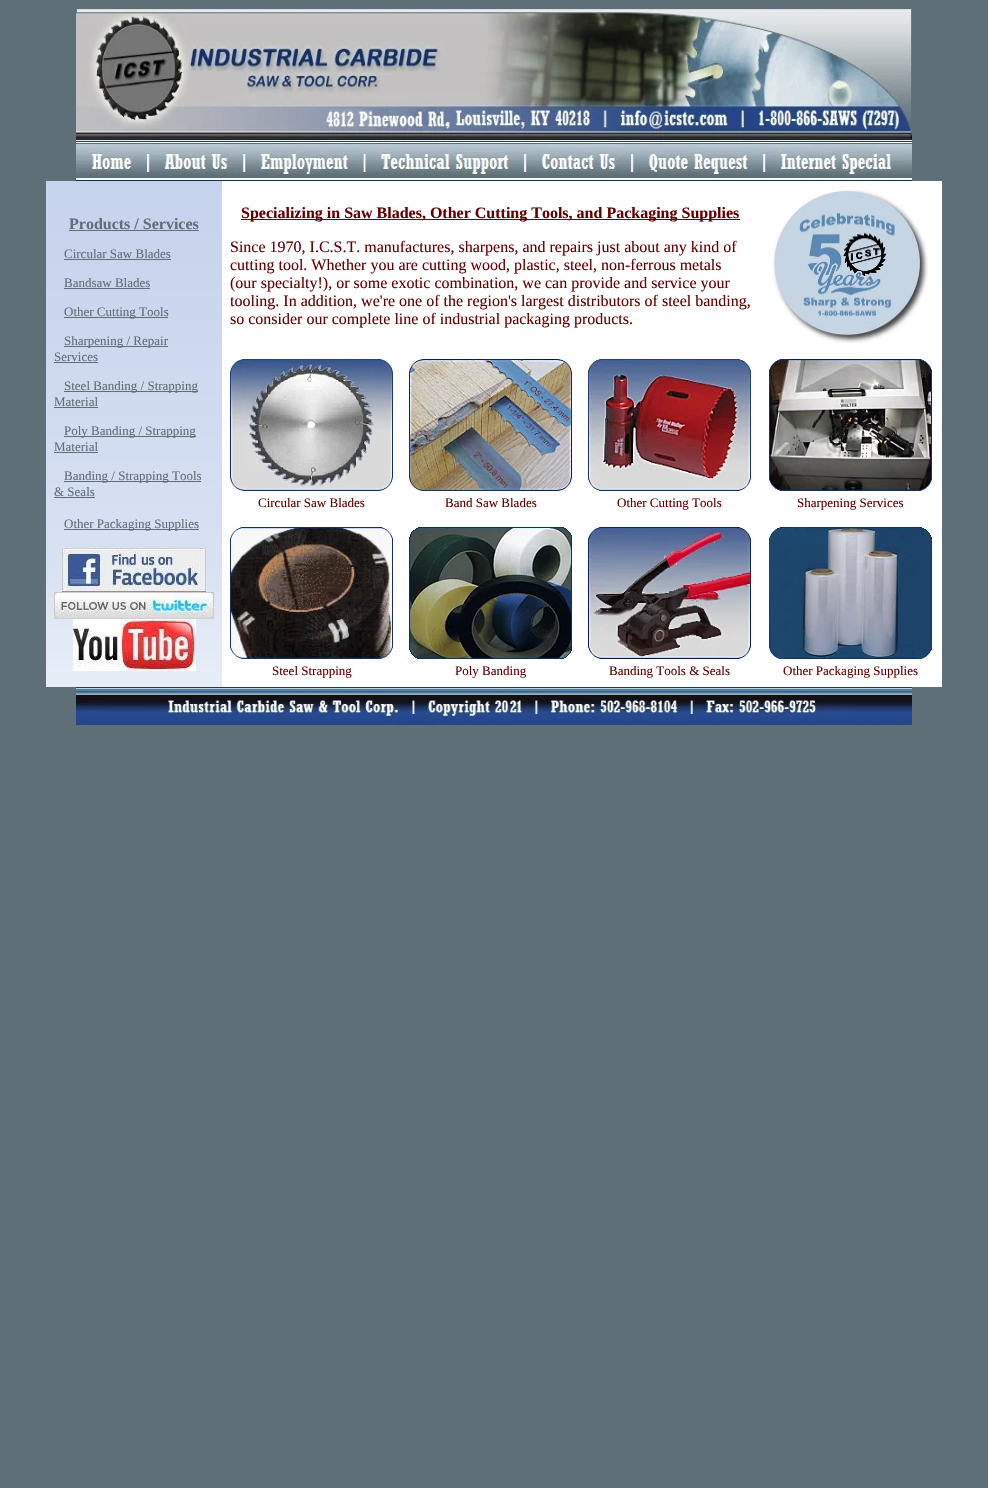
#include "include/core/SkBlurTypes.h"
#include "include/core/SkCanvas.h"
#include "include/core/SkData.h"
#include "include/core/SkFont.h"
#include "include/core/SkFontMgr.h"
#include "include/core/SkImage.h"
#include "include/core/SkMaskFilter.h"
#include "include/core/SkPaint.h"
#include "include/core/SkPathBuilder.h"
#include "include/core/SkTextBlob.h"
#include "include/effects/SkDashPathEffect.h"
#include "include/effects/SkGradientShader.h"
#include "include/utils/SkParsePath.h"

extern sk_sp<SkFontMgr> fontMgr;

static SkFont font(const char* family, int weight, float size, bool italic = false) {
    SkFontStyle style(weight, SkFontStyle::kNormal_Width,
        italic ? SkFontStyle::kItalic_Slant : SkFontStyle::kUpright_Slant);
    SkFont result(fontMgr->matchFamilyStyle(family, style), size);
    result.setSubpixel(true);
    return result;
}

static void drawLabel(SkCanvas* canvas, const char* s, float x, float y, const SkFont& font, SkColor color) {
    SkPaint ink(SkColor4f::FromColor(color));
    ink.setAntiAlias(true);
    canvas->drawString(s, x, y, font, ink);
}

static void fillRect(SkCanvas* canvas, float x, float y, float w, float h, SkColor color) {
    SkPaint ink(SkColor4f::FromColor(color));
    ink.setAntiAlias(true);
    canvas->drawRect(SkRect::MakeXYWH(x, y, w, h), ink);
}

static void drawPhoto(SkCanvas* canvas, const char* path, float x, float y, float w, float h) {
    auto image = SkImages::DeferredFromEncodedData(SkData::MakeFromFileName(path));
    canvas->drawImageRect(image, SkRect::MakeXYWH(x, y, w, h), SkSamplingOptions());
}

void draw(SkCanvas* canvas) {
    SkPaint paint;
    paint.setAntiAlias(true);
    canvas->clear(0xFF5F6F77);
    drawPhoto(canvas, "assets/img1.png", 76, 8, 836, 135);
    drawPhoto(canvas, "assets/img2.png", 76, 143, 836, 38);
    fillRect(canvas, 222, 181, 720, 506, 0xFFFFFFFF);
    drawPhoto(canvas, "assets/img3.png", 46, 181, 176, 506);
    SkFont font1 = font("Liberation Serif", 700, 16);
    drawLabel(canvas, "Products / Services", 69, 229, font1, 0xFF5F6F77);
    fillRect(canvas, 69, 230, 130, 1, 0xFF5F6F77);
    SkFont font2 = font("Liberation Serif", 400, 13);
    drawLabel(canvas, "Circular Saw Blades", 64, 258, font2, 0xFF5F6F77);
    fillRect(canvas, 64, 259, 107, 1, 0xFF5F6F77);
    drawLabel(canvas, "Bandsaw Blades", 64, 287, font2, 0xFF5F6F77);
    fillRect(canvas, 64, 288, 86, 1, 0xFF5F6F77);
    fillRect(canvas, 64, 317, 104, 1, 0xFF5F6F77);
    drawLabel(canvas, "Other Cutting Tools", 64, 316, font2, 0xFF5F6F77);
    fillRect(canvas, 64, 346, 104, 1, 0xFF5F6F77);
    drawLabel(canvas, "Sharpening / Repair", 64, 345, font2, 0xFF5F6F77);
    drawLabel(canvas, "Services", 54, 361, font2, 0xFF5F6F77);
    fillRect(canvas, 54, 362, 44, 1, 0xFF5F6F77);
    fillRect(canvas, 64, 391, 134, 1, 0xFF5F6F77);
    drawLabel(canvas, "Steel Banding / Strapping", 64, 390, font2, 0xFF5F6F77);
    drawLabel(canvas, "Material", 54, 406, font2, 0xFF5F6F77);
    fillRect(canvas, 54, 407, 44, 1, 0xFF5F6F77);
    fillRect(canvas, 64, 436, 132, 1, 0xFF5F6F77);
    drawLabel(canvas, "Poly Banding / Strapping", 64, 435, font2, 0xFF5F6F77);
    drawLabel(canvas, "Material", 54, 451, font2, 0xFF5F6F77);
    fillRect(canvas, 54, 452, 44, 1, 0xFF5F6F77);
    fillRect(canvas, 64, 481, 137, 1, 0xFF5F6F77);
    drawLabel(canvas, "Banding / Strapping Tools", 64, 480, font2, 0xFF5F6F77);
    drawLabel(canvas, "& Seals", 54, 496, font2, 0xFF5F6F77);
    fillRect(canvas, 54, 497, 41, 1, 0xFF5F6F77);
    fillRect(canvas, 64, 529, 135, 1, 0xFF5F6F77);
    drawLabel(canvas, "Other Packaging Supplies", 64, 528, font2, 0xFF5F6F77);
    drawPhoto(canvas, "assets/img4.png", 62, 548, 144, 44);
    drawPhoto(canvas, "assets/img5.png", 54, 592, 160, 27);
    drawPhoto(canvas, "assets/img6.png", 73, 619, 123, 52);
    fillRect(canvas, 241, 219, 499, 1, 0xFF660000);
    drawLabel(canvas, "Specializing in Saw Blades, Other Cutting Tools, and Packaging Supplies", 241, 218, font1, 0xFF660000);
    SkFont font3 = font("Liberation Serif", 400, 16);
    drawLabel(canvas, "Since 1970, I.C.S.T. manufactures, sharpens, and repairs just about any kind of", 230, 252, font3, 0xFF660000);
    drawLabel(canvas, "cutting tool. Whether you are cutting wood, plastic, steel, non-ferrous metals", 230, 270, font3, 0xFF660000);
    drawLabel(canvas, "(our specialty!), or some exotic combination, we can provide and service your", 230, 288, font3, 0xFF660000);
    drawLabel(canvas, "tooling. In addition, we're one of the region's largest distributors of steel banding,", 230, 306, font3, 0xFF660000);
    drawLabel(canvas, "so consider our complete line of industrial packaging products.", 230, 324, font3, 0xFF660000);
    drawPhoto(canvas, "assets/img7.png", 773, 189, 155, 154);
    drawPhoto(canvas, "assets/img8.png", 230, 359, 163, 132);
    drawLabel(canvas, "Circular Saw Blades", 258, 507, font2, 0xFF660000);
    drawPhoto(canvas, "assets/img9.png", 409, 359, 163, 132);
    drawLabel(canvas, "Band Saw Blades", 445, 507, font2, 0xFF660000);
    drawPhoto(canvas, "assets/img10.png", 588, 359, 163, 132);
    drawLabel(canvas, "Other Cutting Tools", 617, 507, font2, 0xFF660000);
    drawPhoto(canvas, "assets/img11.png", 769, 359, 163, 132);
    drawLabel(canvas, "Sharpening Services", 797, 507, font2, 0xFF660000);
    drawPhoto(canvas, "assets/img12.png", 230, 527, 163, 132);
    drawLabel(canvas, "Steel Strapping", 272, 675, font2, 0xFF660000);
    drawPhoto(canvas, "assets/img13.png", 409, 527, 163, 132);
    drawLabel(canvas, "Poly Banding", 455, 675, font2, 0xFF660000);
    drawPhoto(canvas, "assets/img14.png", 588, 527, 163, 132);
    drawLabel(canvas, "Banding Tools & Seals", 609, 675, font2, 0xFF660000);
    drawPhoto(canvas, "assets/img15.png", 769, 527, 163, 132);
    drawLabel(canvas, "Other Packaging Supplies", 783, 675, font2, 0xFF660000);
    drawPhoto(canvas, "assets/img16.png", 76, 687, 836, 38);
}
